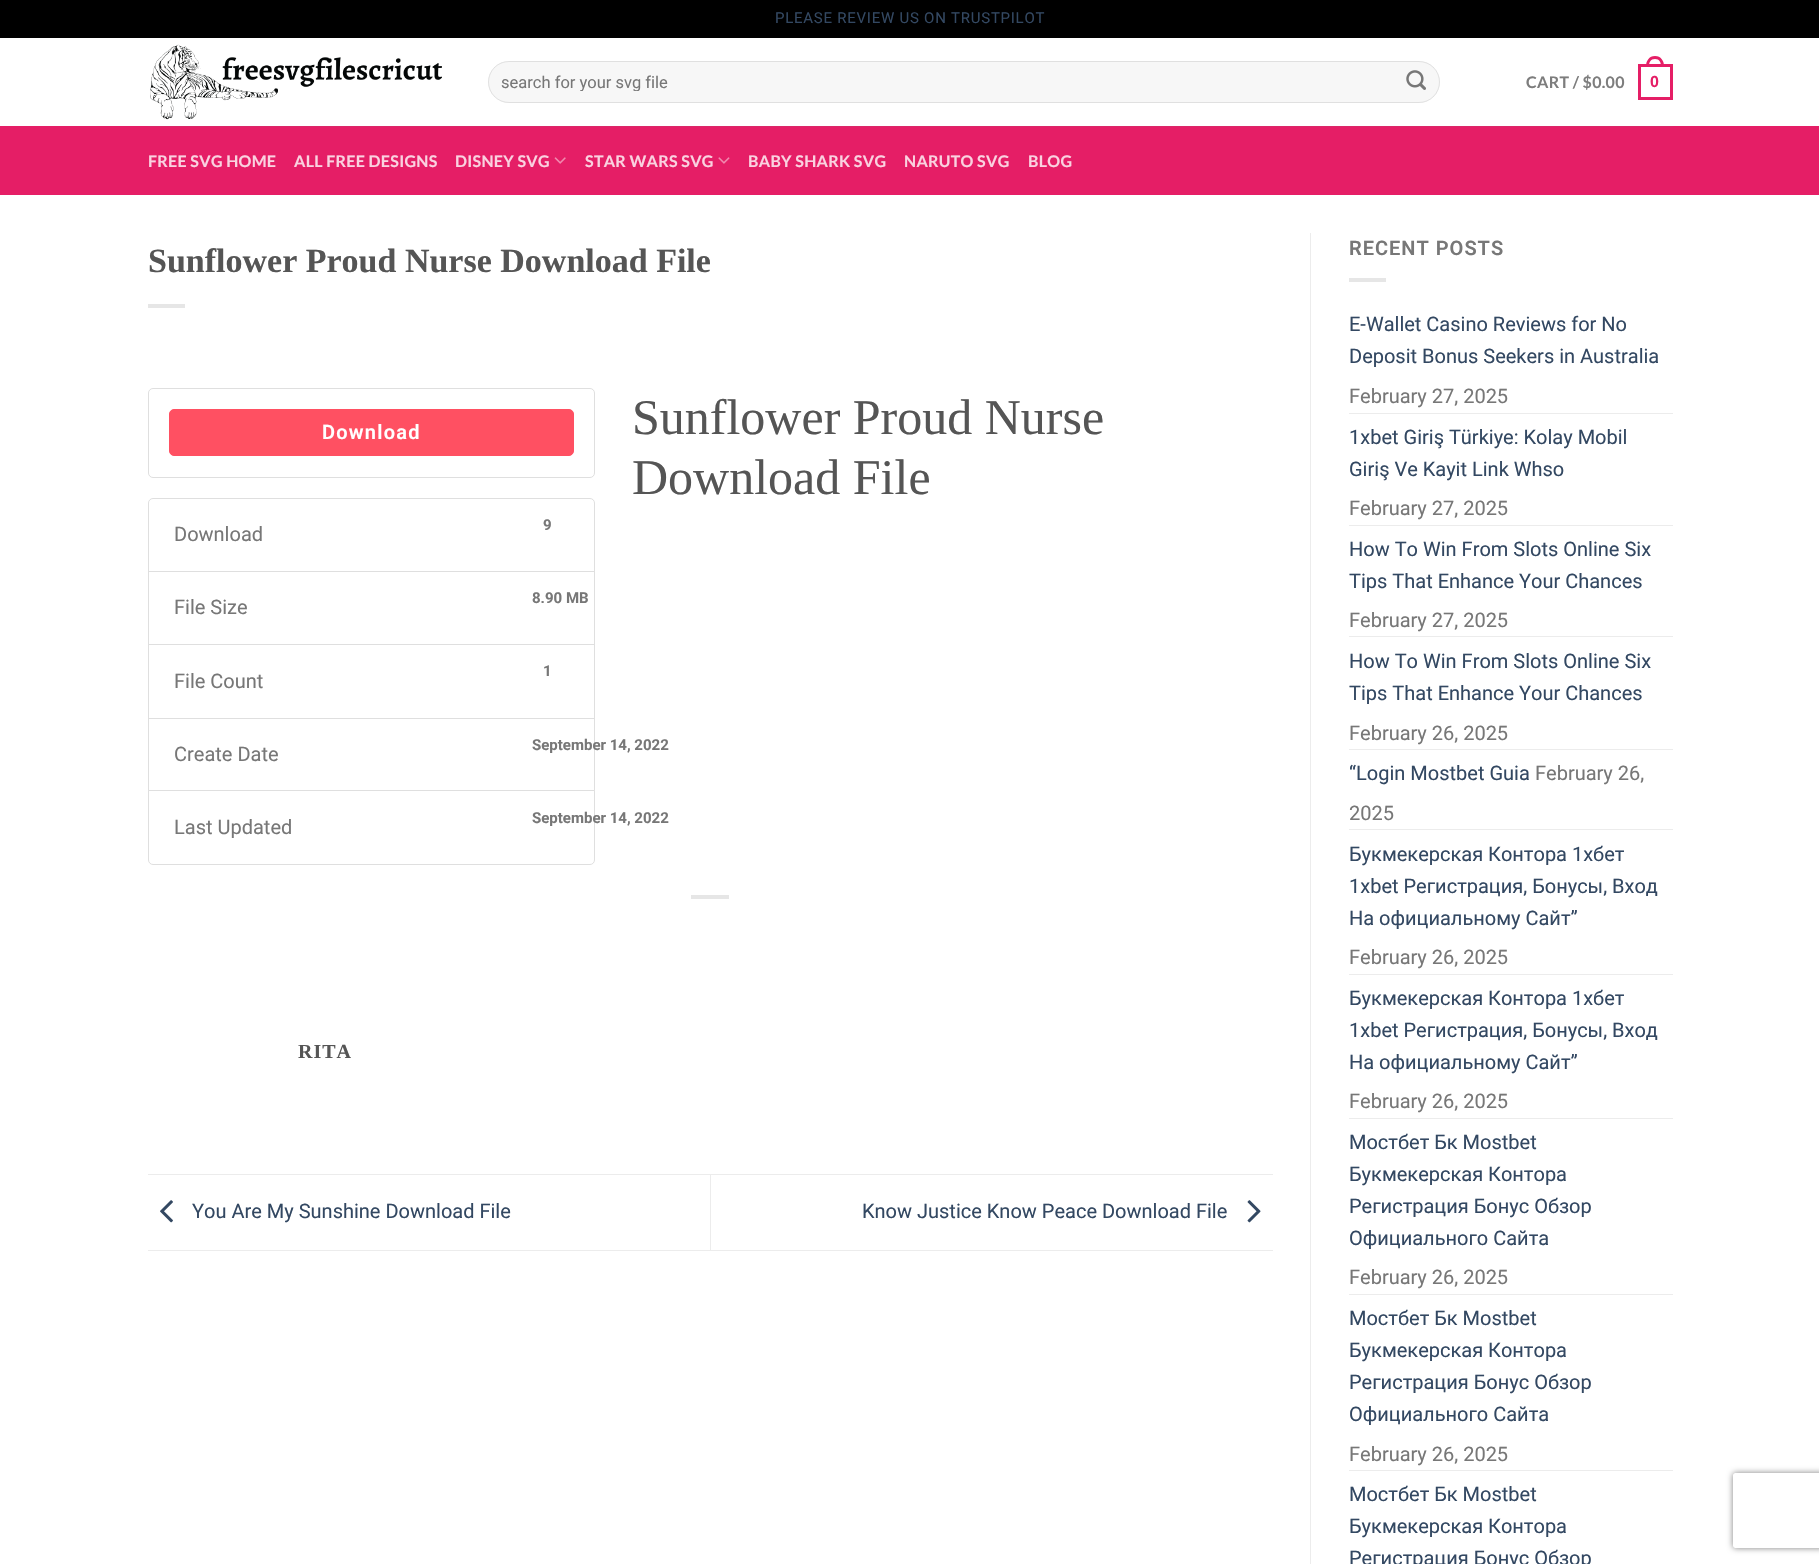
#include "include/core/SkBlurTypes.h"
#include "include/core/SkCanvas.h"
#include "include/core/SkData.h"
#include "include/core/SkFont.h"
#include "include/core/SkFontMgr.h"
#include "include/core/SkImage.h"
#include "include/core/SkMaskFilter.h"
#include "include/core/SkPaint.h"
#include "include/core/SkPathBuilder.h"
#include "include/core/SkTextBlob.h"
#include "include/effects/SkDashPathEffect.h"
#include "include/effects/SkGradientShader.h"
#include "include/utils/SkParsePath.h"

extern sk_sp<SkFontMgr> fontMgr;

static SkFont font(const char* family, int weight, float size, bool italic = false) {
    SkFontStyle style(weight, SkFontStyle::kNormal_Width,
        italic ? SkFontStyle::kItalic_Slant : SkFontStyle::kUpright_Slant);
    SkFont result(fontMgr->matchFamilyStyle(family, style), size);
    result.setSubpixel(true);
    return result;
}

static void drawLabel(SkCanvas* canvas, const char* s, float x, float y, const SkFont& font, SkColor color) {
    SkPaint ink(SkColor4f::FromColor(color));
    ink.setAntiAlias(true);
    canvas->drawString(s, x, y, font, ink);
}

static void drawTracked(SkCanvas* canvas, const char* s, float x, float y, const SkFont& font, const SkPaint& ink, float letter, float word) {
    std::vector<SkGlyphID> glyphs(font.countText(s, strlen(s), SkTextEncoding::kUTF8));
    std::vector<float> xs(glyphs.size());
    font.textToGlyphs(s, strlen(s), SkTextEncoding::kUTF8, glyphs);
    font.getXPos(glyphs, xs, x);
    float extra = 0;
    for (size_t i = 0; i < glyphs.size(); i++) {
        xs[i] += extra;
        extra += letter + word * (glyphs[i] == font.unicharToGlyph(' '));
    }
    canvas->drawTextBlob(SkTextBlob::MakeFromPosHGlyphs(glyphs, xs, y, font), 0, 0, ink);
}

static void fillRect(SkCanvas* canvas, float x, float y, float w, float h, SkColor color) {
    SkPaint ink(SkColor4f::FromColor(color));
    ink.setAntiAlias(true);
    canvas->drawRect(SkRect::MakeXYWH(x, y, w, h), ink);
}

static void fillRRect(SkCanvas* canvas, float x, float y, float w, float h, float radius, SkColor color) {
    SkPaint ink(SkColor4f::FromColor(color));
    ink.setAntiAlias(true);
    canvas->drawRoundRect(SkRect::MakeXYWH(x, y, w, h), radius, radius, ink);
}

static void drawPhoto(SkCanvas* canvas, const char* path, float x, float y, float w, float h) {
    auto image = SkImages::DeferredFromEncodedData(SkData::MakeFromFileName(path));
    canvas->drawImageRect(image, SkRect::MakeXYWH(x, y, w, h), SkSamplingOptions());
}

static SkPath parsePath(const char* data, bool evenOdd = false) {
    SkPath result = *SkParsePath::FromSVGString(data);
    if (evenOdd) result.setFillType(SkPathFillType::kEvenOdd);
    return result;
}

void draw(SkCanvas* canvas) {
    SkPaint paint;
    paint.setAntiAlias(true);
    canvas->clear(0xFFFFFFFF);
    fillRect(canvas, 0, 0, 1819, 38, 0xFF000000);
    SkFont font1 = font("Roboto", 400, 15);
    paint.setColor(0xFF334862);
    drawTracked(canvas, "PLEASE REVIEW US ON TRUSTPILOT", 775, 23, font1, paint, 0.75f, 0);
    drawPhoto(canvas, "assets/img1.png", 150, 44, 292, 76);
    fillRRect(canvas, 488, 61, 952, 42, 21, 0xFFF7F7F7);
    paint.setStroke(true);
    paint.setStrokeWidth(1);
    paint.setColor(0x17000000);
    canvas->drawRoundRect(SkRect::MakeXYWH(488.5f, 61.5f, 951, 41), 20.5f, 20.5f, paint);
    canvas->save();
    canvas->clipRect(SkRect::MakeXYWH(501, 73, 920, 18));
    SkFont font2 = font("Roboto", 400, 16.5f);
    drawLabel(canvas, "search for your svg file", 501, 88, font2, 0xFF777777);
    canvas->restore();
    drawPhoto(canvas, "assets/img2.png", 1406, 70, 20, 20);
    SkFont font3 = font("Lato", 700, 16);
    paint.setStroke(false);
    paint.setColor(0xFF7D7D7D);
    drawTracked(canvas, "CART / $0.00", 1526, 88, font3, paint, 0.3f, 0);
    paint.setStroke(true);
    paint.setStrokeWidth(3);
    paint.setColor(0xFFE51E66);
    canvas->drawRect(SkRect::MakeXYWH(1639.5f, 65.5f, 32, 33), paint);
    paint.setStroke(false);
    canvas->drawPath(parsePath("M1655 56C1661 56 1664 61 1664 66H1646C1646 61 1649 56 1655 56ZM1655 59C1659.5 59 1661 62.5 1661 66H1649C1649 62.5 1650.5 59 1655 59Z", true), paint);
    SkFont font4 = font("Liberation Sans", 700, 16);
    drawTracked(canvas, "0", 1650, 87, font4, paint, 0.3f, 0);
    fillRect(canvas, 0, 126, 1819, 69, 0xFFE51E66);
    fillRect(canvas, 148, 126, 1525, 1, 0xFFDA2768);
    paint.setColor(0xFFFAD2E0);
    drawTracked(canvas, "FREE SVG HOME", 148, 167, font3, paint, 0.3f, 0);
    drawTracked(canvas, "ALL FREE DESIGNS", 294, 167, font3, paint, 0.3f, 0);
    drawTracked(canvas, "DISNEY SVG", 455, 167, font3, paint, 0.3f, 0);
    drawPhoto(canvas, "assets/img3.png", 554, 157, 12, 7);
    drawTracked(canvas, "STAR WARS SVG", 585, 167, font3, paint, 0.3f, 0);
    drawPhoto(canvas, "assets/img4.png", 718, 157, 12, 7);
    drawTracked(canvas, "BABY SHARK SVG", 748, 167, font3, paint, 0.3f, 0);
    drawTracked(canvas, "NARUTO SVG", 904, 167, font3, paint, 0.3f, 0);
    drawTracked(canvas, "BLOG", 1028, 167, font3, paint, 0.3f, 0);
    SkFont font5 = font("Liberation Serif", 700, 34);
    drawLabel(canvas, "Sunflower Proud Nurse Download File", 148, 272, font5, 0xFF555555);
    fillRect(canvas, 148, 304, 37, 4, 0xFFE6E6E6);
    paint.setStroke(true);
    paint.setStrokeWidth(1);
    paint.setColor(0xFFDFDFDF);
    canvas->drawRoundRect(SkRect::MakeXYWH(148.5f, 388.5f, 446, 89), 4.5f, 4.5f, paint);
    paint.setStroke(false);
    paint.setColor(0xFFFF5062);
    canvas->drawRoundRect(SkRect::MakeXYWH(169.5f, 409.5f, 404, 46), 4.5f, 4.5f, paint);
    paint.setStroke(true);
    canvas->drawRoundRect(SkRect::MakeXYWH(169.5f, 409.5f, 404, 46), 4.5f, 4.5f, paint);
    SkFont font6 = font("Roboto", 600, 20);
    paint.setStroke(false);
    paint.setColor(0xFFFFFFFF);
    drawTracked(canvas, "Download", 322, 439, font6, paint, 1.25f, 0);
    paint.setStroke(true);
    paint.setColor(0xFFDFDFDF);
    canvas->drawPath(parsePath("M153 498.5H590C592.5 498.5 594.5 500.5 594.5 503V572.5H148.5V503C148.5 500.5 150.5 498.5 153 498.5Z"), paint);
    SkFont font7 = font("Roboto", 400, 20);
    drawLabel(canvas, "Download", 174, 541, font7, 0xFF777777);
    SkFont font8 = font("Roboto", 700, 15);
    drawLabel(canvas, "9", 543, 530, font8, 0xFF777777);
    fillRect(canvas, 149, 572, 445, 1, 0xFFFFFFFF);
    canvas->drawRect(SkRect::MakeXYWH(148.5f, 571.5f, 446, 73), paint);
    drawLabel(canvas, "File Size", 174, 614, font7, 0xFF777777);
    drawLabel(canvas, "8.90 MB", 532, 603, font8, 0xFF777777);
    canvas->drawRect(SkRect::MakeXYWH(148.5f, 644.5f, 446, 74), paint);
    drawLabel(canvas, "1", 543, 676, font8, 0xFF777777);
    drawLabel(canvas, "File Count", 174, 688, font7, 0xFF777777);
    canvas->drawRect(SkRect::MakeXYWH(148.5f, 718.5f, 446, 72), paint);
    drawLabel(canvas, "Create Date", 174, 761, font7, 0xFF777777);
    drawLabel(canvas, "September 14, 2022", 532, 750, font8, 0xFF777777);
    paint.setStroke(false);
    paint.setColor(0xFFFFFFFF);
    canvas->drawPath(parsePath("M148.5 790.5H594.5V860C594.5 862.5 592.5 864.5 590 864.5H153C150.5 864.5 148.5 862.5 148.5 860Z"), paint);
    paint.setStroke(true);
    paint.setColor(0xFFDFDFDF);
    canvas->drawPath(parsePath("M148.5 790.5H594.5V860C594.5 862.5 592.5 864.5 590 864.5H153C150.5 864.5 148.5 862.5 148.5 860Z"), paint);
    drawLabel(canvas, "Last Updated", 174, 834, font7, 0xFF777777);
    drawLabel(canvas, "September 14, 2022", 532, 823, font8, 0xFF777777);
    SkFont font9 = font("Liberation Serif", 400, 50);
    drawLabel(canvas, "Sunflower Proud Nurse", 632, 434, font9, 0xFF555555);
    drawLabel(canvas, "Download File", 632, 494, font9, 0xFF555555);
    fillRect(canvas, 691, 895, 38, 4, 0xFFE6E6E6);
    SkFont font10 = font("Liberation Serif", 700, 20);
    paint.setStroke(false);
    paint.setColor(0xFF555555);
    drawTracked(canvas, "RITA", 298, 1058, font10, paint, 1, 0);
    fillRect(canvas, 148, 1174, 1125, 1, 0xFFECECEC);
    fillRect(canvas, 148, 1250, 1125, 1, 0xFFECECEC);
    drawPhoto(canvas, "assets/img5.png", 160, 1200, 13, 23);
    drawLabel(canvas, "You Are My Sunshine Download File", 192, 1218, font7, 0xFF334862);
    fillRect(canvas, 710, 1175, 1, 75, 0xFFECECEC);
    drawLabel(canvas, "Know Justice Know Peace Download File", 862, 1218, font7, 0xFF334862);
    drawPhoto(canvas, "assets/img6.png", 1247, 1200, 14, 23);
    fillRect(canvas, 1310, 233, 1, 1331, 0xFFECECEC);
    paint.setColor(0xFF777777);
    drawTracked(canvas, "RECENT POSTS", 1349, 255, font6, paint, 1, 0);
    fillRect(canvas, 1349, 278, 37, 4, 0xFFE6E6E6);
    drawLabel(canvas, "E-Wallet Casino Reviews for No", 1349, 331, font7, 0xFF334862);
    drawLabel(canvas, "Deposit Bonus Seekers in Australia", 1349, 363, font7, 0xFF334862);
    drawLabel(canvas, "February 27, 2025", 1349, 403, font7, 0xFF777777);
    fillRect(canvas, 1349, 413, 324, 1, 0xFFECECEC);
    drawLabel(canvas, "1xbet Giriş Türkiye: Kolay Mobil", 1349, 444, font7, 0xFF334862);
    drawLabel(canvas, "Giriş Ve Kayit Link Whso", 1349, 476, font7, 0xFF334862);
    drawLabel(canvas, "February 27, 2025", 1349, 515, font7, 0xFF777777);
    fillRect(canvas, 1349, 525, 324, 1, 0xFFECECEC);
    drawLabel(canvas, "How To Win From Slots Online Six", 1349, 556, font7, 0xFF334862);
    drawLabel(canvas, "Tips That Enhance Your Chances", 1349, 588, font7, 0xFF334862);
    drawLabel(canvas, "February 27, 2025", 1349, 627, font7, 0xFF777777);
    fillRect(canvas, 1349, 636, 324, 1, 0xFFECECEC);
    drawLabel(canvas, "How To Win From Slots Online Six", 1349, 668, font7, 0xFF334862);
    drawLabel(canvas, "Tips That Enhance Your Chances", 1349, 700, font7, 0xFF334862);
    drawLabel(canvas, "February 26, 2025", 1349, 740, font7, 0xFF777777);
    fillRect(canvas, 1349, 749, 324, 1, 0xFFECECEC);
    drawLabel(canvas, "“Login Mostbet Guia", 1349, 780, font7, 0xFF334862);
    drawLabel(canvas, "February 26,", 1535, 780, font7, 0xFF777777);
    drawLabel(canvas, "2025", 1349, 820, font7, 0xFF777777);
    fillRect(canvas, 1349, 829, 324, 1, 0xFFECECEC);
    drawLabel(canvas, "Букмекерская Контора 1хбет", 1349, 861, font7, 0xFF334862);
    drawLabel(canvas, "1xbet Регистрация, Бонусы, Вход", 1349, 893, font7, 0xFF334862);
    drawLabel(canvas, "На официальному Сайт”", 1349, 925, font7, 0xFF334862);
    drawLabel(canvas, "February 26, 2025", 1349, 964, font7, 0xFF777777);
    fillRect(canvas, 1349, 974, 324, 1, 0xFFECECEC);
    drawLabel(canvas, "Букмекерская Контора 1хбет", 1349, 1005, font7, 0xFF334862);
    drawLabel(canvas, "1xbet Регистрация, Бонусы, Вход", 1349, 1037, font7, 0xFF334862);
    drawLabel(canvas, "На официальному Сайт”", 1349, 1069, font7, 0xFF334862);
    drawLabel(canvas, "February 26, 2025", 1349, 1108, font7, 0xFF777777);
    fillRect(canvas, 1349, 1118, 324, 1, 0xFFECECEC);
    drawLabel(canvas, "Мостбет Бк Mostbet", 1349, 1149, font7, 0xFF334862);
    drawLabel(canvas, "Букмекерская Контора", 1349, 1181, font7, 0xFF334862);
    drawLabel(canvas, "Регистрация Бонус Обзор", 1349, 1213, font7, 0xFF334862);
    drawLabel(canvas, "Официального Сайта", 1349, 1245, font7, 0xFF334862);
    drawLabel(canvas, "February 26, 2025", 1349, 1284, font7, 0xFF777777);
    fillRect(canvas, 1349, 1294, 324, 1, 0xFFECECEC);
    drawLabel(canvas, "Мостбет Бк Mostbet", 1349, 1325, font7, 0xFF334862);
    drawLabel(canvas, "Букмекерская Контора", 1349, 1357, font7, 0xFF334862);
    drawLabel(canvas, "Регистрация Бонус Обзор", 1349, 1389, font7, 0xFF334862);
    drawLabel(canvas, "Официального Сайта", 1349, 1421, font7, 0xFF334862);
    drawLabel(canvas, "February 26, 2025", 1349, 1461, font7, 0xFF777777);
    fillRect(canvas, 1349, 1470, 324, 1, 0xFFECECEC);
    drawLabel(canvas, "Мостбет Бк Mostbet", 1349, 1501, font7, 0xFF334862);
    drawLabel(canvas, "Букмекерская Контора", 1349, 1533, font7, 0xFF334862);
    drawLabel(canvas, "Регистрация Бонус Обзор", 1349, 1565, font7, 0xFF334862);
    canvas->save();
    canvas->clipPath(parsePath("M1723 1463H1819V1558H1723ZM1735.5 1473H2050.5C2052 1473 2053 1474 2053 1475.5V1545.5C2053 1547 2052 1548 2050.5 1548H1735.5C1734 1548 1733 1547 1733 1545.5V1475.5C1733 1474 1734 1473 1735.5 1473Z", true), true);
    paint.setColor(0xFF808080);
    paint.setMaskFilter(SkMaskFilter::MakeBlur(kNormal_SkBlurStyle, 3));
    canvas->drawRoundRect(SkRect::MakeXYWH(1733, 1473, 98, 75), 2.5f, 2.5f, paint);
    paint.setMaskFilter(nullptr);
    canvas->restore();
}
